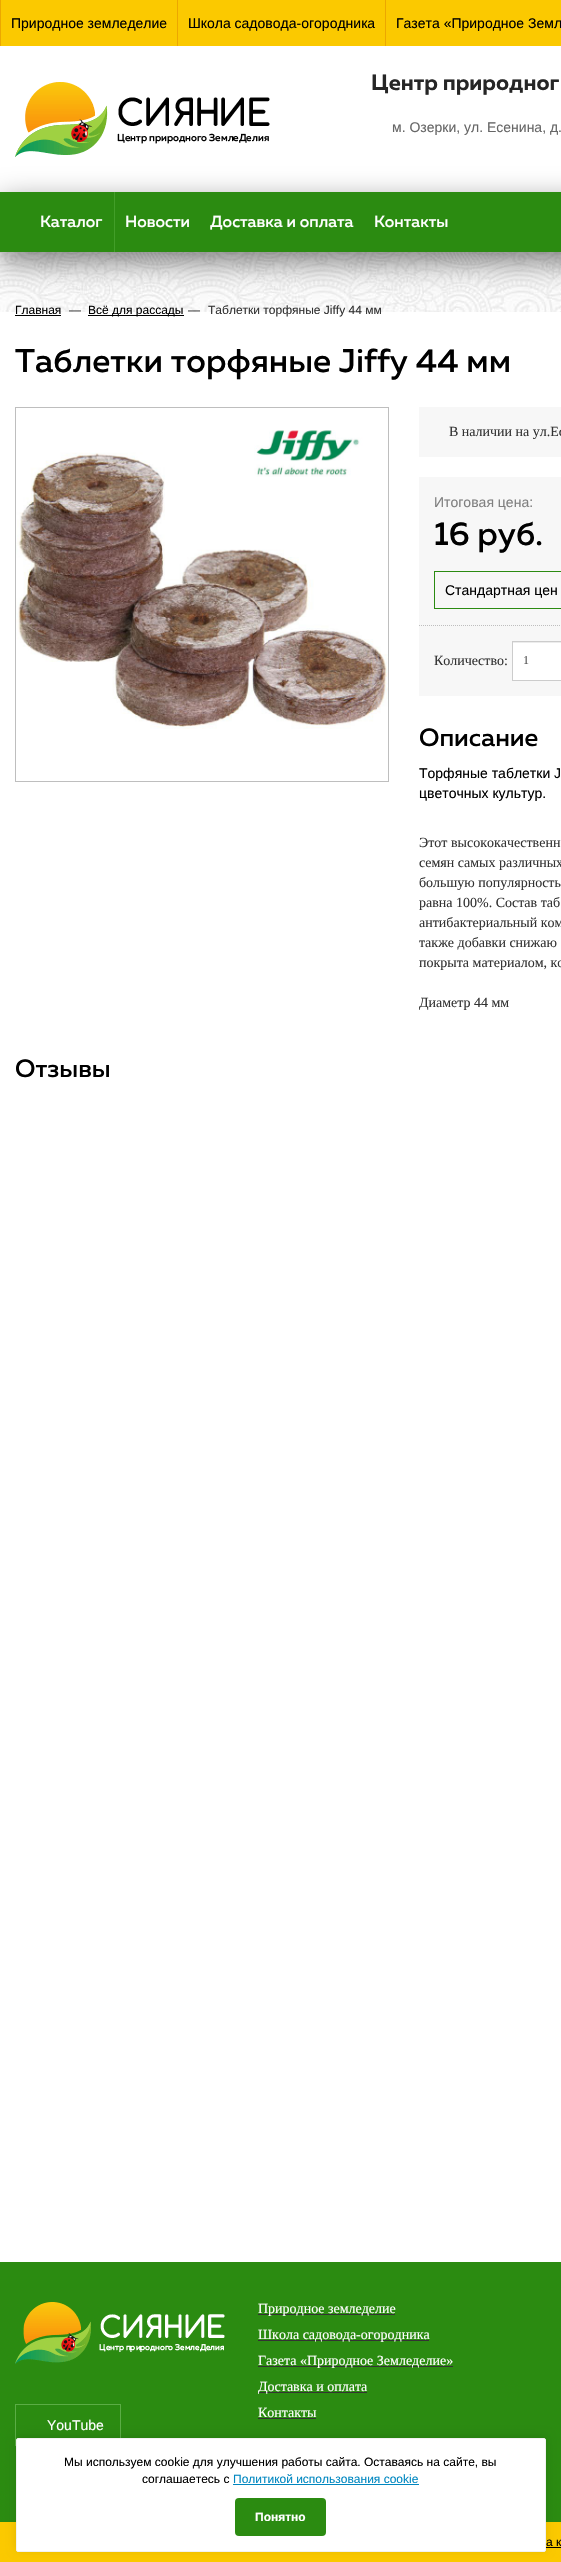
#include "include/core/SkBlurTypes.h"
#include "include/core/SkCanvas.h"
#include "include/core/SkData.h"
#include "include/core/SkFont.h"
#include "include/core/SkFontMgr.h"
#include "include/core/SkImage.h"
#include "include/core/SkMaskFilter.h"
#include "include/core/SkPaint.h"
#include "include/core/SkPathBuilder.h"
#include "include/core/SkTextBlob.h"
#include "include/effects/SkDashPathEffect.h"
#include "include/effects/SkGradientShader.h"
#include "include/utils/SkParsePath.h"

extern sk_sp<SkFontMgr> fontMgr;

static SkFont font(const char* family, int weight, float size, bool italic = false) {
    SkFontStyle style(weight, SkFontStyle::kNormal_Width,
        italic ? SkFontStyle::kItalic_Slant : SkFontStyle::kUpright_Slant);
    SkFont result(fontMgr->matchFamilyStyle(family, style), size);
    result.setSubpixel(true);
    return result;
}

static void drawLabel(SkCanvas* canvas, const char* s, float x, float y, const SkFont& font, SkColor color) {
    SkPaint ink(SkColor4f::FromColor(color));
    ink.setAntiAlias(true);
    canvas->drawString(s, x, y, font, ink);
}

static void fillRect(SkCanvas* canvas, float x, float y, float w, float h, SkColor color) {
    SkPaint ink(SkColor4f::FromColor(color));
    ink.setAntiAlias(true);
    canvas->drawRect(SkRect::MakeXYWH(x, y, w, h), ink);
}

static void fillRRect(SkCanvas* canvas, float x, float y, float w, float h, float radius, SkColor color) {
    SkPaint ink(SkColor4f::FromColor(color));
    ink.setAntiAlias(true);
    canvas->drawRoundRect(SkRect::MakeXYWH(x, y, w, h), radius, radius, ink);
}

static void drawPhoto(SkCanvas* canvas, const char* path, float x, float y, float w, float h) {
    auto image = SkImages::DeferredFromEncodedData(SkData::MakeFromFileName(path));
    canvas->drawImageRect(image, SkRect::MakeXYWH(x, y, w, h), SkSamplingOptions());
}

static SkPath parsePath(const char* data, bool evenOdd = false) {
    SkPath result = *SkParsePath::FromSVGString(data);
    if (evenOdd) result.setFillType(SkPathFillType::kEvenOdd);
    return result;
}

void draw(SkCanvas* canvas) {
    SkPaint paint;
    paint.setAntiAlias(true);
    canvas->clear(0xFFFFFFFF);
    fillRect(canvas, 1, 0, 560, 46, 0xFFFBC900);
    fillRect(canvas, 0, 0, 1, 46, 0xFFECA700);
    fillRect(canvas, 177, 0, 1, 46, 0xFFECA700);
    SkFont font1 = font("Liberation Sans", 400, 14);
    drawLabel(canvas, "Природное земледелие", 11, 28, font1, 0xFF000000);
    fillRect(canvas, 385, 0, 1, 46, 0xFFECA700);
    drawLabel(canvas, "Школа садовода-огородника", 188, 28, font1, 0xFF000000);
    drawLabel(canvas, "Газета «Природное Земл", 396, 28, font1, 0xFF000000);
    drawPhoto(canvas, "assets/img1.png", 15, 82, 255, 75);
    SkFont font2 = font("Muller", 700, 22);
    drawLabel(canvas, "Центр природног", 371, 90, font2, 0xFF262626);
    drawLabel(canvas, "м. Озерки, ул. Есенина, д.", 392, 132, font1, 0xFF666666);
    drawPhoto(canvas, "assets/img2.png", 0, 252, 561, 60);
    paint.setColor(0x80000000);
    paint.setMaskFilter(SkMaskFilter::MakeBlur(kNormal_SkBlurStyle, 15));
    canvas->drawRect(SkRect::MakeXYWH(0, 202, 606, 60), paint);
    paint.setMaskFilter(nullptr);
    fillRect(canvas, 0, 192, 561, 60, 0xFF2B8B11);
    fillRect(canvas, 114, 192, 1, 60, 0xFF429E29);
    SkFont font3 = font("Muller", 500, 16);
    drawLabel(canvas, "Каталог", 40, 227, font3, 0xFFFFFFFF);
    drawLabel(canvas, "Новости", 125, 227, font3, 0xFFFFFFFF);
    drawLabel(canvas, "Доставка и оплата", 210, 227, font3, 0xFFFFFFFF);
    drawLabel(canvas, "Контакты", 374, 227, font3, 0xFFFFFFFF);
    SkFont font4 = font("Liberation Sans", 400, 12);
    drawLabel(canvas, "Главная", 15, 314, font4, 0xFF000000);
    fillRect(canvas, 15, 315, 46, 1, 0xFF000000);
    drawLabel(canvas, "—", 69, 314, font4, 0xFF333333);
    fillRect(canvas, 88, 315, 96, 1, 0xFF000000);
    drawLabel(canvas, "Всё для рассады", 88, 314, font4, 0xFF000000);
    drawLabel(canvas, "—", 188, 314, font4, 0xFF333333);
    drawLabel(canvas, "Таблетки торфяные Jiffy 44 мм", 208, 314, font4, 0xFF333333);
    SkFont font5 = font("Muller", 500, 33);
    drawLabel(canvas, "Таблетки торфяные Jiffy 44 мм", 15, 372, font5, 0xFF000000);
    paint.setStroke(true);
    paint.setStrokeWidth(1);
    paint.setColor(0xFFBEBEBE);
    canvas->drawRect(SkRect::MakeXYWH(15.5f, 407.5f, 373, 374), paint);
    drawPhoto(canvas, "assets/img3.png", 16, 430, 372, 299);
    fillRect(canvas, 419, 407, 142, 50, 0xFFF7F7F7);
    SkFont font6 = font("Liberation Serif", 400, 14);
    drawLabel(canvas, "В наличии на ул.Ес", 449, 436, font6, 0xFF333333);
    fillRect(canvas, 419, 477, 142, 219, 0xFFF7F7F7);
    paint.setPathEffect(SkDashPathEffect::Make({{1, 1}}, 0));
    canvas->drawPath(parsePath("M419 625.5H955"), paint);
    paint.setPathEffect(nullptr);
    drawLabel(canvas, "Итоговая цена:", 434, 507, font1, 0xFF808080);
    drawLabel(canvas, "16 руб.", 434, 545, font5, 0xFF000000);
    paint.setColor(0xFF2B8B11);
    canvas->drawRect(SkRect::MakeXYWH(434.5f, 571.5f, 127, 37), paint);
    drawLabel(canvas, "Стандартная цен", 445, 595, font1, 0xFF000000);
    drawLabel(canvas, "Количество:", 434, 665, font6, 0xFF333333);
    fillRect(canvas, 513, 643, 48, 37, 0xFFFFFFFF);
    fillRect(canvas, 513, 642, 48, 1, 0xFFECECEC);
    paint.setColor(0xFFCCCCCC);
    canvas->drawRect(SkRect::MakeXYWH(512.5f, 641.5f, 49, 39), paint);
    SkFont font7 = font("Liberation Serif", 400, 12);
    drawLabel(canvas, "1", 523, 664, font7, 0xFF555555);
    SkFont font8 = font("Muller", 500, 25);
    drawLabel(canvas, "Описание", 419, 746, font8, 0xFF000000);
    drawLabel(canvas, "Торфяные таблетки J", 419, 778, font1, 0xFF000000);
    drawLabel(canvas, "цветочных культур.", 419, 798, font1, 0xFF000000);
    drawLabel(canvas, "Этот высококачественн", 419, 847, font6, 0xFF333333);
    drawLabel(canvas, "семян самых различных", 419, 867, font6, 0xFF333333);
    drawLabel(canvas, "большую популярность", 419, 887, font6, 0xFF333333);
    drawLabel(canvas, "равна 100%. Состав таб", 419, 907, font6, 0xFF333333);
    drawLabel(canvas, "антибактериальный ком", 419, 927, font6, 0xFF333333);
    drawLabel(canvas, "также добавки снижаю", 419, 947, font6, 0xFF333333);
    drawLabel(canvas, "покрыта материалом, ко", 419, 967, font6, 0xFF333333);
    drawLabel(canvas, "Диаметр 44 мм", 419, 1007, font6, 0xFF333333);
    drawLabel(canvas, "Отзывы", 15, 1077, font8, 0xFF000000);
    fillRect(canvas, 0, 2262, 561, 260, 0xFF2B8B11);
    fillRect(canvas, 258, 2314, 137, 1, 0xFF333333);
    drawLabel(canvas, "Природное земледелие", 258, 2313, font6, 0xFFFFFFFF);
    fillRect(canvas, 258, 2340, 171, 1, 0xFF333333);
    drawLabel(canvas, "Школа садовода-огородника", 258, 2339, font6, 0xFFFFFFFF);
    fillRect(canvas, 258, 2366, 195, 1, 0xFF333333);
    drawLabel(canvas, "Газета «Природное Земледелие»", 258, 2365, font6, 0xFFFFFFFF);
    fillRect(canvas, 258, 2392, 109, 1, 0xFF333333);
    drawLabel(canvas, "Доставка и оплата", 258, 2391, font6, 0xFFFFFFFF);
    drawLabel(canvas, "Контакты", 258, 2417, font6, 0xFFFFFFFF);
    fillRect(canvas, 258, 2418, 58, 1, 0xFF333333);
    drawPhoto(canvas, "assets/img4.png", 15, 2302, 210, 62);
    paint.setColor(0xFF5BAD45);
    canvas->drawRect(SkRect::MakeXYWH(15.5f, 2404.5f, 105, 41), paint);
    drawLabel(canvas, "YouTube", 47, 2430, font1, 0xFFFFFFFF);
    fillRect(canvas, 0, 2522, 561, 40, 0xFFFBC900);
    drawLabel(canvas, "а к", 546, 2546, font4, 0xFF000000);
    fillRect(canvas, 546, 2547, 15, 1, 0xFF000000);
    paint.setStroke(false);
    paint.setColor(0x1A000000);
    paint.setMaskFilter(SkMaskFilter::MakeBlur(kNormal_SkBlurStyle, 5));
    canvas->drawRoundRect(SkRect::MakeXYWH(16, 2436, 530, 114), 2, 2, paint);
    paint.setMaskFilter(nullptr);
    paint.setColor(0xFFFFFFFF);
    canvas->drawRoundRect(SkRect::MakeXYWH(16.5f, 2438.5f, 529, 113), 1.5f, 1.5f, paint);
    paint.setStroke(true);
    paint.setColor(0xFFF2F2F2);
    canvas->drawRoundRect(SkRect::MakeXYWH(16.5f, 2438.5f, 529, 113), 1.5f, 1.5f, paint);
    drawLabel(canvas, "Мы используем cookie для улучшения работы сайта. Оставаясь на сайте, вы", 64, 2466, font4, 0xFF000000);
    drawLabel(canvas, "соглашаетесь с", 142, 2483, font4, 0xFF000000);
    drawLabel(canvas, "Политикой использования cookie", 233, 2483, font4, 0xFF0087C0);
    fillRect(canvas, 233, 2484, 186, 1, 0xFF0087C0);
    fillRRect(canvas, 235, 2498, 91, 38, 4, 0xFF2B8B11);
    SkFont font9 = font("Liberation Sans", 700, 12);
    drawLabel(canvas, "Понятно", 255, 2521, font9, 0xFFFFFFFF);
}
